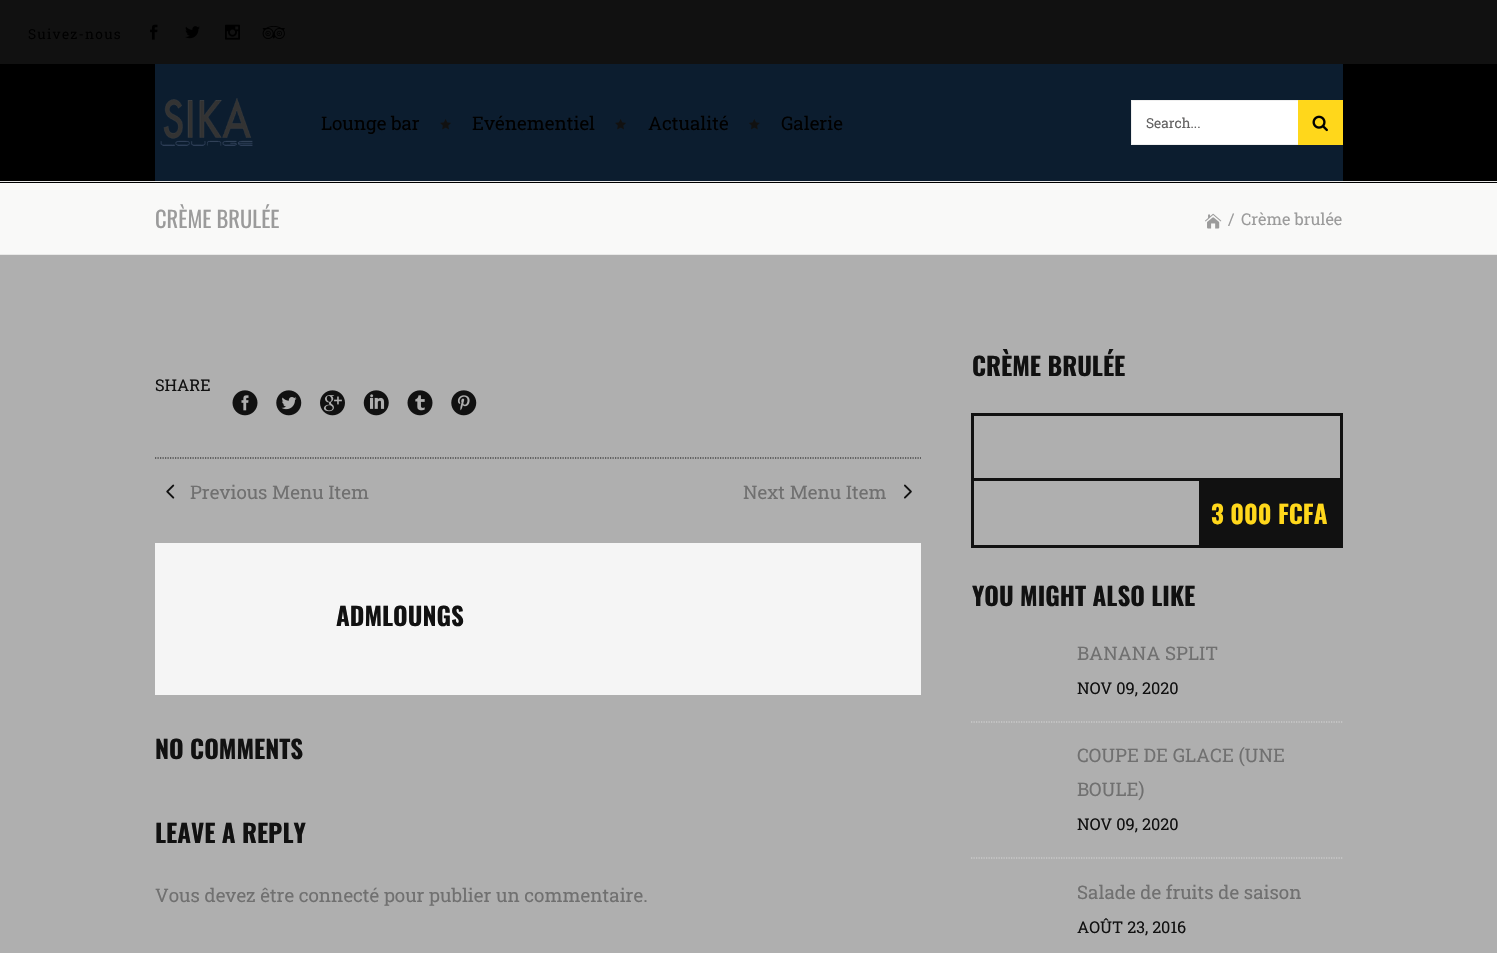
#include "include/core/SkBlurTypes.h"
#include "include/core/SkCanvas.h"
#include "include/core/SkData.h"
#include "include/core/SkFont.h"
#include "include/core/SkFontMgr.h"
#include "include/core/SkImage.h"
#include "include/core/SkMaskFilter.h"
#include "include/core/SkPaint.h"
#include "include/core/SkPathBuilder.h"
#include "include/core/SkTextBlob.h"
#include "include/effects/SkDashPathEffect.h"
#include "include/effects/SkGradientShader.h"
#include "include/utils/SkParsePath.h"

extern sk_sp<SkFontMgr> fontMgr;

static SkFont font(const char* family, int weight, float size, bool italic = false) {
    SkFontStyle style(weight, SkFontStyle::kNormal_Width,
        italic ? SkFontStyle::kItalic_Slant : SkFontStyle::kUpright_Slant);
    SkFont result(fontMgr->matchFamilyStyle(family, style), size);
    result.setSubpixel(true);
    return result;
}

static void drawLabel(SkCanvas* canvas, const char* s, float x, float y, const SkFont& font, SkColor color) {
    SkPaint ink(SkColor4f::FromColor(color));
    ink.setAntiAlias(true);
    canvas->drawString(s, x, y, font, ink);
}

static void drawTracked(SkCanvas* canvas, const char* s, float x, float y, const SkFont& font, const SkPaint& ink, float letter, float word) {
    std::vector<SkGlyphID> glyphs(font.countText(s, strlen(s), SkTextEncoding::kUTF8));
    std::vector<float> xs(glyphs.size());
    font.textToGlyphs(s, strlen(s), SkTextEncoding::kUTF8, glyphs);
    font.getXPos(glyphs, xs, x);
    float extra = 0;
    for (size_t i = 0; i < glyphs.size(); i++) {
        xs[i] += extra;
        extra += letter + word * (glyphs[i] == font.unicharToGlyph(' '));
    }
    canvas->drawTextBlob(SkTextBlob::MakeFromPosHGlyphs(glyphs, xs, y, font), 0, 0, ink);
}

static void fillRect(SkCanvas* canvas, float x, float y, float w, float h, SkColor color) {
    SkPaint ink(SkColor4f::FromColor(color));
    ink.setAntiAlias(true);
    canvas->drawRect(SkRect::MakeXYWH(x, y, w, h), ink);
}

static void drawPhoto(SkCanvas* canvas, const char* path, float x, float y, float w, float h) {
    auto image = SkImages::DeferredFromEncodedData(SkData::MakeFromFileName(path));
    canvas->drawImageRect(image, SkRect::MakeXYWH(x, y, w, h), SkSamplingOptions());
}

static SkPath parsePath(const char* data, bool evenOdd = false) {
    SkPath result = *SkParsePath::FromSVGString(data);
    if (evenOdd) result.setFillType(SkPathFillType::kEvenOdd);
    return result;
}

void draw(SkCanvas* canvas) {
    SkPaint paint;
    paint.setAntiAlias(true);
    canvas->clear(0xFFAFAFAF);
    fillRect(canvas, 0, 0, 1497, 64, 0xFF111111);
    SkFont font1 = font("Roboto Slab", 400, 13.75f);
    paint.setColor(0xFF000000);
    drawTracked(canvas, "Suivez-nous", 28, 39, font1, paint, 1.25f, 0);
    drawPhoto(canvas, "assets/img1.png", 150, 24, 8, 16);
    drawPhoto(canvas, "assets/img2.png", 185, 26, 15, 13);
    drawPhoto(canvas, "assets/img3.png", 225, 24, 15, 16);
    drawPhoto(canvas, "assets/img4.png", 262, 26, 23, 13);
    fillRect(canvas, 0, 64, 1497, 119, 0xFF000000);
    fillRect(canvas, 0, 181, 1497, 1, 0xFFE9E9E8);
    fillRect(canvas, 155, 64, 1188, 117, 0xFF0C1D2F);
    drawPhoto(canvas, "assets/img5.png", 160, 98, 93, 48);
    SkFont font2 = font("Roboto Slab", 400, 18.75f);
    drawLabel(canvas, "Lounge bar", 321, 130, font2, 0xFF000000);
    drawPhoto(canvas, "assets/img6.png", 440, 119, 11, 11);
    drawLabel(canvas, "Evénementiel", 472, 130, font2, 0xFF000000);
    drawPhoto(canvas, "assets/img6.png", 615, 119, 11, 11);
    drawLabel(canvas, "Actualité", 648, 130, font2, 0xFF000000);
    drawPhoto(canvas, "assets/img7.png", 749, 119, 11, 11);
    drawLabel(canvas, "Galerie", 781, 130, font2, 0xFF000000);
    fillRect(canvas, 1132, 101, 166, 43, 0xFFFFFFFF);
    fillRect(canvas, 1131, 100, 167, 1, 0xFFEFEFEF);
    fillRect(canvas, 1131, 144, 167, 1, 0xFFEFEFEF);
    fillRect(canvas, 1131, 100, 1, 45, 0xFFEFEFEF);
    drawLabel(canvas, "Search...", 1146, 128, font1, 0xFF636262);
    fillRect(canvas, 1298, 100, 45, 45, 0xFFFFD71B);
    drawPhoto(canvas, "assets/img8.png", 1312, 115, 16, 17);
    fillRect(canvas, 0, 183, 1497, 71, 0xFFF9F9F8);
    fillRect(canvas, 0, 254, 1497, 1, 0xFFE9E9E8);
    SkFont font3 = font("Oswald", 400, 22.5f);
    drawLabel(canvas, "CRÈME BRULÉE", 155, 228, font3, 0xFF9B9B9B);
    drawPhoto(canvas, "assets/img9.png", 1205, 213, 17, 16);
    SkFont font4 = font("Roboto Slab", 400, 16.25f);
    drawLabel(canvas, "/", 1228, 225, font4, 0xFF9B9B9B);
    drawLabel(canvas, "Crème brulée", 1241, 225, font4, 0xFF9B9B9B);
    paint.setStroke(true);
    paint.setStrokeWidth(1.2f);
    paint.setColor(0xFF111111);
    paint.setPathEffect(SkDashPathEffect::Make({{1.25f, 1.25f}}, 0));
    canvas->drawPath(parsePath("M155 458H921"), paint);
    paint.setPathEffect(nullptr);
    drawLabel(canvas, "SHARE", 155, 391, font4, 0xFF111111);
    drawPhoto(canvas, "assets/img10.png", 232, 390, 26, 26);
    drawPhoto(canvas, "assets/img11.png", 276, 390, 26, 26);
    drawPhoto(canvas, "assets/img12.png", 320, 390, 25, 26);
    drawPhoto(canvas, "assets/img13.png", 363, 390, 26, 26);
    drawPhoto(canvas, "assets/img14.png", 407, 390, 26, 26);
    drawPhoto(canvas, "assets/img15.png", 451, 390, 26, 26);
    drawPhoto(canvas, "assets/img16.png", 166, 484, 9, 15);
    drawLabel(canvas, "Previous Menu Item", 190, 499, font2, 0xFF707070);
    drawLabel(canvas, "Next Menu Item", 743, 499, font2, 0xFF707070);
    drawPhoto(canvas, "assets/img17.png", 904, 484, 8, 15);
    fillRect(canvas, 155, 543, 766, 152, 0xFFF5F5F5);
    SkFont font5 = font("Oswald", 700, 25);
    drawLabel(canvas, "ADMLOUNGS", 336, 626, font5, 0xFF111111);
    drawLabel(canvas, "NO COMMENTS", 155, 759, font5, 0xFF111111);
    drawLabel(canvas, "LEAVE A REPLY", 155, 843, font5, 0xFF111111);
    drawLabel(canvas, "Vous devez être connecté pour publier un commentaire.", 155, 902, font2, 0xFF707070);
    drawLabel(canvas, "CRÈME BRULÉE", 972, 376, font5, 0xFF111111);
    paint.setStrokeWidth(3);
    canvas->drawRect(SkRect::MakeXYWH(972.5f, 414.5f, 369, 132), paint);
    fillRect(canvas, 974, 478, 366, 3, 0xFF111111);
    fillRect(canvas, 1199, 481, 141, 64, 0xFF111111);
    drawLabel(canvas, "3 000 FCFA", 1211, 524, font5, 0xFFFFD71B);
    drawLabel(canvas, "YOU MIGHT ALSO LIKE", 972, 606, font5, 0xFF111111);
    paint.setStrokeWidth(1.2f);
    paint.setColor(0xFFD7D7D7);
    paint.setPathEffect(SkDashPathEffect::Make({{1.25f, 1.25f}}, 0));
    canvas->drawPath(parsePath("M971 722H1342.5"), paint);
    paint.setPathEffect(nullptr);
    drawLabel(canvas, "BANANA SPLIT", 1077, 660, font2, 0xFF707070);
    drawLabel(canvas, "NOV 09, 2020", 1077, 694, font4, 0xFF111111);
    paint.setPathEffect(SkDashPathEffect::Make({{1.25f, 1.25f}}, 0));
    canvas->drawPath(parsePath("M971 858H1342.5"), paint);
    paint.setPathEffect(nullptr);
    drawLabel(canvas, "COUPE DE GLACE (UNE", 1077, 762, font2, 0xFF707070);
    drawLabel(canvas, "BOULE)", 1077, 796, font2, 0xFF707070);
    drawLabel(canvas, "NOV 09, 2020", 1077, 830, font4, 0xFF111111);
    drawLabel(canvas, "Salade de fruits de saison", 1077, 899, font2, 0xFF707070);
    drawLabel(canvas, "AOÛT 23, 2016", 1077, 933, font4, 0xFF111111);
}
